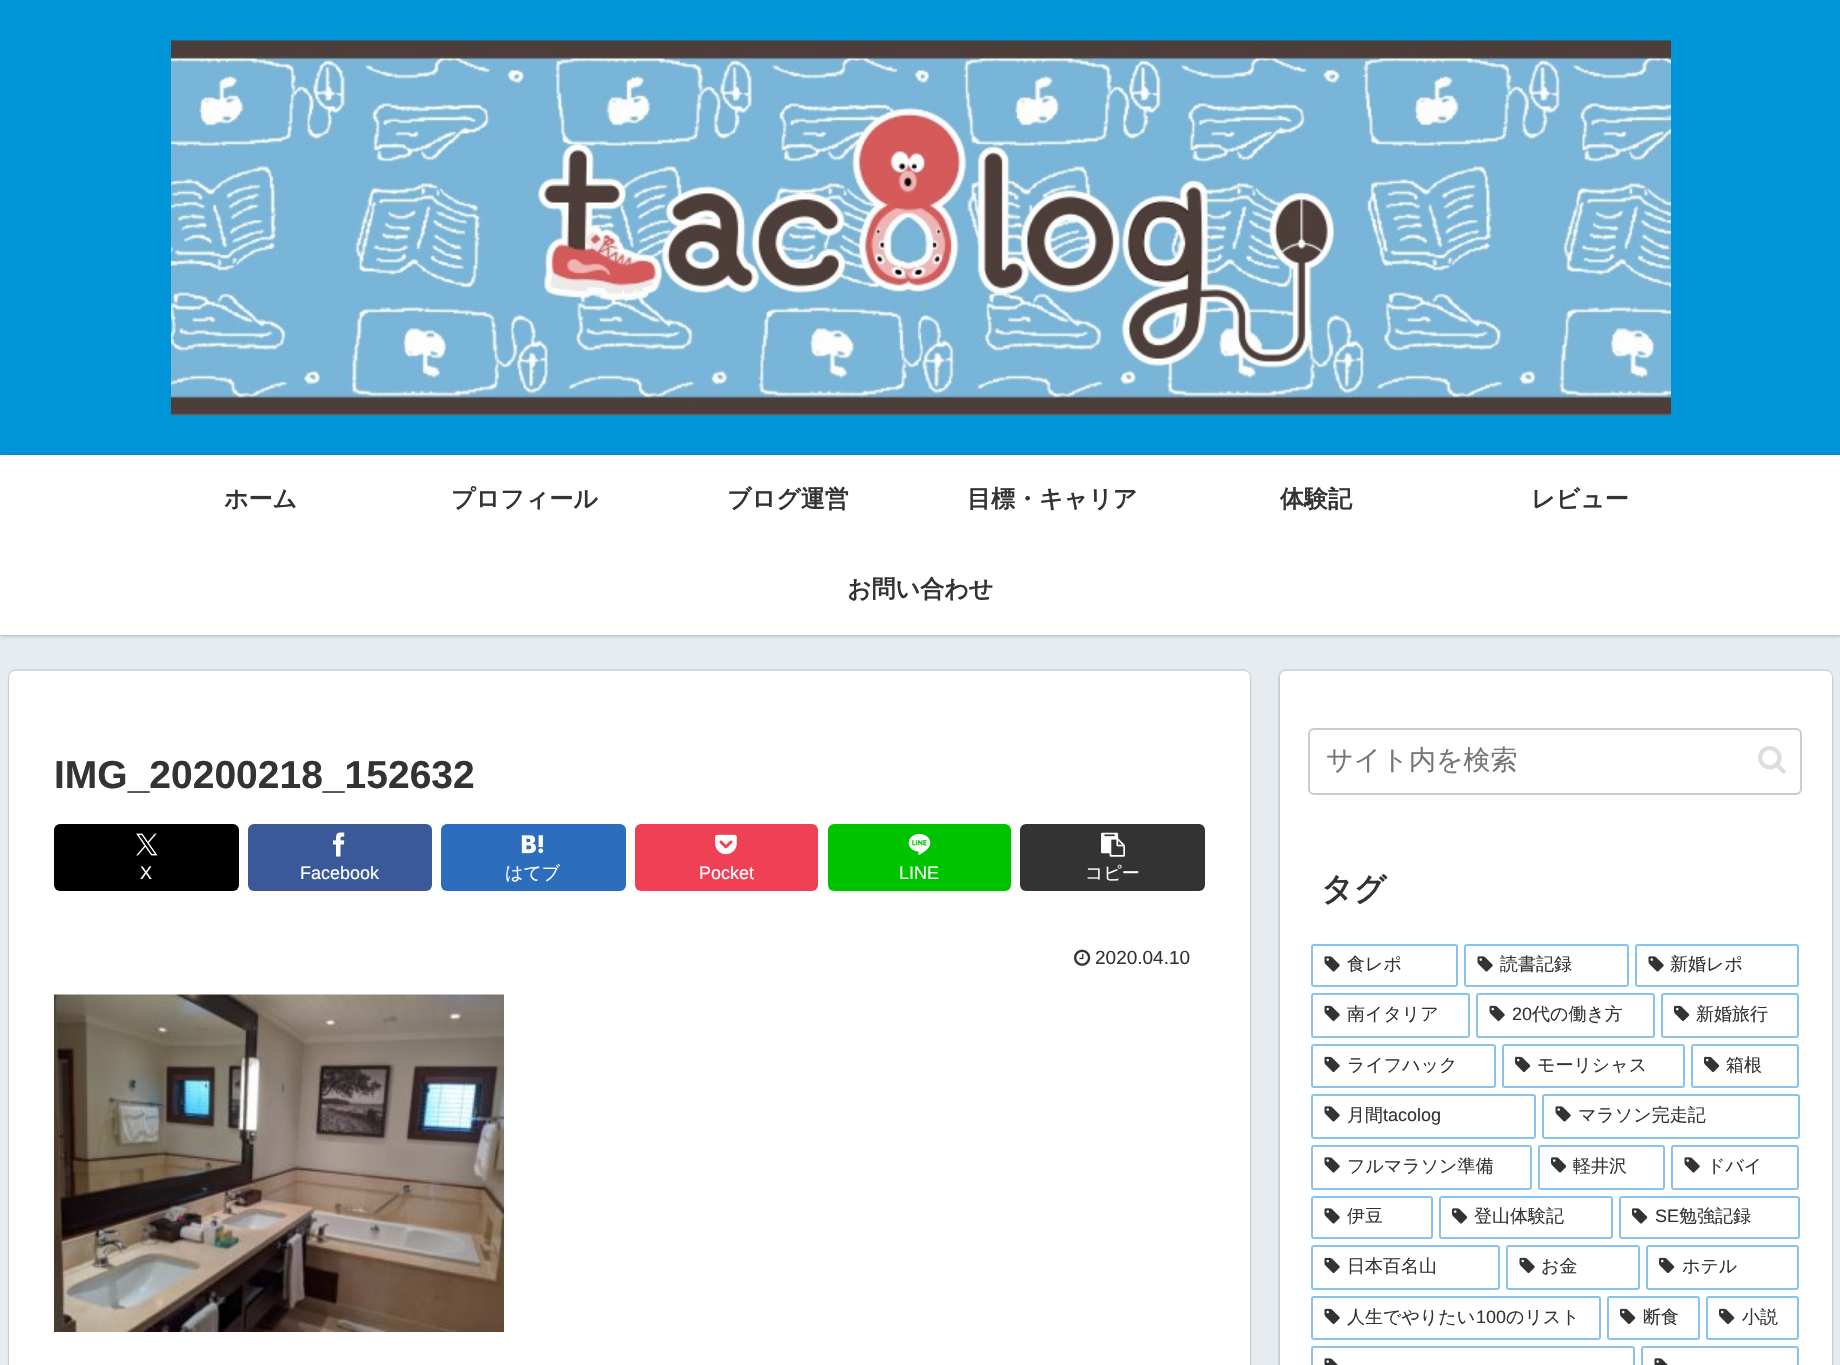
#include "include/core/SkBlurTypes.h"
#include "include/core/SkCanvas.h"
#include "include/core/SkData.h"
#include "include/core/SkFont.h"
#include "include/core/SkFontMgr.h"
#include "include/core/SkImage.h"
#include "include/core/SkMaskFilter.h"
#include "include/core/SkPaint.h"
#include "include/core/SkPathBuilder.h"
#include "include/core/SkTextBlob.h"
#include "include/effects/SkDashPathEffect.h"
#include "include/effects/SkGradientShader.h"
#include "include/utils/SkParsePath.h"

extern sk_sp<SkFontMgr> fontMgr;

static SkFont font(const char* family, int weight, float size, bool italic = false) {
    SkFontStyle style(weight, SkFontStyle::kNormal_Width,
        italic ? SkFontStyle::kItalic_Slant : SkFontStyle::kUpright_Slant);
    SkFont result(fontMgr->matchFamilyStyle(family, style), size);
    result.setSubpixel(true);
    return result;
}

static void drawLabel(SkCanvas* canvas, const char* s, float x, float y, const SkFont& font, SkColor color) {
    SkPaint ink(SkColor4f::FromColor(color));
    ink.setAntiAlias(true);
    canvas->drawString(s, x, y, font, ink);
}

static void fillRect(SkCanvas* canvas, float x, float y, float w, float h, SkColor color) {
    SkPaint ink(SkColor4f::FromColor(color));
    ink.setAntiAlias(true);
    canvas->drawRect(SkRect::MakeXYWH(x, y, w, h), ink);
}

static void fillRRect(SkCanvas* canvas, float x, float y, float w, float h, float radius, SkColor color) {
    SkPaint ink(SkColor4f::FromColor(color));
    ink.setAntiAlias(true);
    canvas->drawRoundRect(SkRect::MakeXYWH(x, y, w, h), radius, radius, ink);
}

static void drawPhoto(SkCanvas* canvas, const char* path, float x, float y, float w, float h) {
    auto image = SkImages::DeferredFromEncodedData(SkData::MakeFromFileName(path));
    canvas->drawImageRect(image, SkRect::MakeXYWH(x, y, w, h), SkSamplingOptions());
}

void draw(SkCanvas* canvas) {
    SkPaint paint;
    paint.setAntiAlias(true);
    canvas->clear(0xFFE6ECF0);
    fillRect(canvas, 0, 0, 1840, 455, 0xFF0095D9);
    drawPhoto(canvas, "assets/img1.png", 171, 40, 1500, 376);
    paint.setColor(0x40000000);
    paint.setMaskFilter(SkMaskFilter::MakeBlur(kNormal_SkBlurStyle, 2));
    canvas->drawRect(SkRect::MakeXYWH(0, 456, 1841, 180), paint);
    paint.setMaskFilter(nullptr);
    fillRect(canvas, 0, 455, 1840, 180, 0xFFFFFFFF);
    SkFont font1 = font("WenQuanYi Zen Hei", 700, 24);
    drawLabel(canvas, "ホーム", 224, 507, font1, 0xFF333333);
    drawLabel(canvas, "プロフィール", 451, 507, font1, 0xFF333333);
    drawLabel(canvas, "ブログ運営", 727, 507, font1, 0xFF333333);
    drawLabel(canvas, "目標・キャリア", 967, 507, font1, 0xFF333333);
    drawLabel(canvas, "体験記", 1280, 507, font1, 0xFF333333);
    drawLabel(canvas, "レビュー", 1531, 507, font1, 0xFF333333);
    drawLabel(canvas, "お問い合わせ", 847, 597, font1, 0xFF333333);
    paint.setStroke(true);
    paint.setStrokeWidth(2);
    paint.setColor(0xFFD4D9DD);
    canvas->drawRoundRect(SkRect::MakeXYWH(9, 670, 1241, 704), 7, 7, paint);
    paint.setStroke(false);
    paint.setColor(0x29000000);
    paint.setMaskFilter(SkMaskFilter::MakeBlur(kNormal_SkBlurStyle, 1.5f));
    canvas->drawRoundRect(SkRect::MakeXYWH(9, 674, 1241, 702), 6, 6, paint);
    paint.setMaskFilter(nullptr);
    fillRRect(canvas, 9, 671, 1241, 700, 6, 0xFFFFFFFF);
    SkFont font2 = font("Liberation Sans", 700, 39);
    drawLabel(canvas, "IMG_20200218_152632", 54, 788, font2, 0xFF333333);
    fillRRect(canvas, 54, 824, 185, 67, 6, 0xFF000000);
    drawPhoto(canvas, "assets/img2.png", 136, 833, 22, 23);
    SkFont font3 = font("Liberation Sans", 400, 18);
    drawLabel(canvas, "X", 140, 879, font3, 0xFFFFFFFF);
    fillRRect(canvas, 248, 824, 184, 67, 6, 0xFF3B5998);
    drawPhoto(canvas, "assets/img3.png", 333, 832, 12, 25);
    drawLabel(canvas, "Facebook", 300, 879, font3, 0xFFFFFFFF);
    fillRRect(canvas, 441, 824, 185, 67, 6, 0xFF2C6EBD);
    drawPhoto(canvas, "assets/img4.png", 521, 835, 23, 19);
    SkFont font4 = font("WenQuanYi Zen Hei", 500, 18);
    drawLabel(canvas, "はてブ", 505, 879, font4, 0xFFFFFFFF);
    fillRRect(canvas, 635, 824, 183, 67, 6, 0xFFEF4056);
    drawPhoto(canvas, "assets/img5.png", 715, 834, 22, 21);
    drawLabel(canvas, "Pocket", 699, 879, font3, 0xFFFFFFFF);
    fillRRect(canvas, 828, 824, 183, 67, 6, 0xFF00C300);
    drawPhoto(canvas, "assets/img6.png", 908, 833, 23, 22);
    drawLabel(canvas, "LINE", 899, 879, font3, 0xFFFFFFFF);
    fillRRect(canvas, 1020, 824, 185, 67, 6, 0xFF333333);
    drawPhoto(canvas, "assets/img7.png", 1101, 832, 24, 25);
    drawLabel(canvas, "コピー", 1085, 879, font4, 0xFFFFFFFF);
    drawPhoto(canvas, "assets/img8.png", 1074, 949, 17, 17);
    SkFont font5 = font("Liberation Sans", 400, 19);
    drawLabel(canvas, "2020.04.10", 1095, 964, font5, 0xFF333333);
    drawPhoto(canvas, "assets/img9.png", 54, 994, 450, 338);
    paint.setStroke(true);
    paint.setColor(0xFFD4D9DD);
    canvas->drawRoundRect(SkRect::MakeXYWH(1279, 670, 553, 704), 7, 7, paint);
    paint.setStroke(false);
    paint.setColor(0x29000000);
    paint.setMaskFilter(SkMaskFilter::MakeBlur(kNormal_SkBlurStyle, 1.5f));
    canvas->drawRoundRect(SkRect::MakeXYWH(1280, 674, 552, 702), 6, 6, paint);
    paint.setMaskFilter(nullptr);
    fillRRect(canvas, 1280, 671, 552, 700, 6, 0xFFFFFFFF);
    paint.setStroke(true);
    paint.setColor(0xFFCCCCCC);
    canvas->drawRoundRect(SkRect::MakeXYWH(1309, 729, 492, 65), 5, 5, paint);
    SkFont font6 = font("WenQuanYi Zen Hei", 500, 27);
    drawLabel(canvas, "サイト内を検索", 1326, 769, font6, 0xFF757575);
    drawPhoto(canvas, "assets/img10.png", 1758, 746, 28, 28);
    SkFont font7 = font("WenQuanYi Zen Hei", 700, 32);
    drawLabel(canvas, "タグ", 1321, 900, font7, 0xFF333333);
    paint.setColor(0xFF89C3EB);
    canvas->drawRoundRect(SkRect::MakeXYWH(1312, 945, 145, 41), 2, 2, paint);
    drawPhoto(canvas, "assets/img11.png", 1324, 956, 16, 16);
    drawLabel(canvas, "食レポ", 1347, 970, font4, 0xFF333333);
    canvas->drawRoundRect(SkRect::MakeXYWH(1465, 945, 163, 41), 2, 2, paint);
    drawPhoto(canvas, "assets/img11.png", 1477, 956, 16, 16);
    drawLabel(canvas, "読書記録", 1500, 970, font4, 0xFF333333);
    canvas->drawRoundRect(SkRect::MakeXYWH(1636, 945, 162, 41), 2, 2, paint);
    drawPhoto(canvas, "assets/img11.png", 1648, 956, 16, 16);
    drawLabel(canvas, "新婚レポ", 1670, 970, font4, 0xFF333333);
    canvas->drawRoundRect(SkRect::MakeXYWH(1312, 994, 157, 43), 2, 2, paint);
    drawPhoto(canvas, "assets/img12.png", 1324, 1005, 16, 17);
    drawLabel(canvas, "南イタリア", 1347, 1020, font4, 0xFF333333);
    canvas->drawRoundRect(SkRect::MakeXYWH(1477, 994, 177, 43), 2, 2, paint);
    drawPhoto(canvas, "assets/img12.png", 1489, 1005, 16, 17);
    drawLabel(canvas, "20", 1512, 1020, font3, 0xFF333333);
    drawLabel(canvas, "代の働き方", 1532, 1020, font4, 0xFF333333);
    canvas->drawRoundRect(SkRect::MakeXYWH(1662, 994, 136, 43), 2, 2, paint);
    drawPhoto(canvas, "assets/img13.png", 1674, 1005, 16, 16);
    drawLabel(canvas, "新婚旅行", 1696, 1020, font4, 0xFF333333);
    canvas->drawRoundRect(SkRect::MakeXYWH(1312, 1045, 183, 42), 2, 2, paint);
    drawPhoto(canvas, "assets/img12.png", 1324, 1056, 16, 17);
    drawLabel(canvas, "ライフハック", 1347, 1071, font4, 0xFF333333);
    canvas->drawRoundRect(SkRect::MakeXYWH(1503, 1045, 181, 42), 2, 2, paint);
    drawPhoto(canvas, "assets/img13.png", 1515, 1056, 16, 16);
    drawLabel(canvas, "モーリシャス", 1537, 1071, font4, 0xFF333333);
    canvas->drawRoundRect(SkRect::MakeXYWH(1692, 1045, 106, 42), 2, 2, paint);
    drawPhoto(canvas, "assets/img13.png", 1704, 1056, 16, 16);
    drawLabel(canvas, "箱根", 1726, 1071, font4, 0xFF333333);
    canvas->drawRoundRect(SkRect::MakeXYWH(1312, 1095, 223, 43), 2, 2, paint);
    drawPhoto(canvas, "assets/img11.png", 1324, 1106, 16, 16);
    drawLabel(canvas, "月間", 1347, 1121, font4, 0xFF333333);
    drawLabel(canvas, "tacolog", 1383, 1121, font3, 0xFF333333);
    canvas->drawRoundRect(SkRect::MakeXYWH(1543, 1095, 256, 43), 2, 2, paint);
    drawPhoto(canvas, "assets/img11.png", 1555, 1106, 16, 16);
    drawLabel(canvas, "マラソン完走記", 1578, 1121, font4, 0xFF333333);
    canvas->drawRoundRect(SkRect::MakeXYWH(1312, 1146, 219, 43), 2, 2, paint);
    drawPhoto(canvas, "assets/img11.png", 1324, 1157, 16, 16);
    drawLabel(canvas, "フルマラソン準備", 1347, 1172, font4, 0xFF333333);
    canvas->drawRoundRect(SkRect::MakeXYWH(1539, 1146, 125, 43), 2, 2, paint);
    drawPhoto(canvas, "assets/img14.png", 1551, 1157, 16, 16);
    drawLabel(canvas, "軽井沢", 1573, 1172, font4, 0xFF333333);
    canvas->drawRoundRect(SkRect::MakeXYWH(1672, 1146, 126, 43), 2, 2, paint);
    drawPhoto(canvas, "assets/img11.png", 1684, 1157, 16, 16);
    drawLabel(canvas, "ドバイ", 1707, 1172, font4, 0xFF333333);
    canvas->drawRoundRect(SkRect::MakeXYWH(1312, 1197, 120, 41), 2, 2, paint);
    drawPhoto(canvas, "assets/img11.png", 1324, 1208, 16, 16);
    drawLabel(canvas, "伊豆", 1347, 1222, font4, 0xFF333333);
    canvas->drawRoundRect(SkRect::MakeXYWH(1440, 1197, 172, 41), 2, 2, paint);
    drawPhoto(canvas, "assets/img14.png", 1452, 1208, 16, 16);
    drawLabel(canvas, "登山体験記", 1474, 1222, font4, 0xFF333333);
    canvas->drawRoundRect(SkRect::MakeXYWH(1620, 1197, 179, 41), 2, 2, paint);
    drawPhoto(canvas, "assets/img14.png", 1632, 1208, 16, 16);
    drawLabel(canvas, "SE", 1655, 1222, font3, 0xFF333333);
    drawLabel(canvas, "勉強記録", 1679, 1222, font4, 0xFF333333);
    canvas->drawRoundRect(SkRect::MakeXYWH(1312, 1246, 187, 43), 2, 2, paint);
    drawPhoto(canvas, "assets/img12.png", 1324, 1257, 16, 17);
    drawLabel(canvas, "日本百名山", 1347, 1272, font4, 0xFF333333);
    canvas->drawRoundRect(SkRect::MakeXYWH(1507, 1246, 132, 43), 2, 2, paint);
    drawPhoto(canvas, "assets/img12.png", 1519, 1257, 16, 17);
    drawLabel(canvas, "お金", 1541, 1272, font4, 0xFF333333);
    canvas->drawRoundRect(SkRect::MakeXYWH(1647, 1246, 151, 43), 2, 2, paint);
    drawPhoto(canvas, "assets/img13.png", 1659, 1257, 16, 16);
    drawLabel(canvas, "ホテル", 1682, 1272, font4, 0xFF333333);
    canvas->drawRoundRect(SkRect::MakeXYWH(1312, 1297, 288, 42), 2, 2, paint);
    drawPhoto(canvas, "assets/img12.png", 1324, 1308, 16, 17);
    drawLabel(canvas, "人生でやりたい", 1347, 1323, font4, 0xFF333333);
    drawLabel(canvas, "100", 1476, 1323, font3, 0xFF333333);
    drawLabel(canvas, "のリスト", 1506, 1323, font4, 0xFF333333);
    canvas->drawRoundRect(SkRect::MakeXYWH(1608, 1297, 91, 42), 2, 2, paint);
    drawPhoto(canvas, "assets/img13.png", 1620, 1308, 16, 16);
    drawLabel(canvas, "断食", 1643, 1323, font4, 0xFF333333);
    canvas->drawRoundRect(SkRect::MakeXYWH(1707, 1297, 91, 42), 2, 2, paint);
    drawPhoto(canvas, "assets/img13.png", 1719, 1308, 16, 16);
    drawLabel(canvas, "小説", 1742, 1323, font4, 0xFF333333);
    canvas->drawRoundRect(SkRect::MakeXYWH(1312, 1347, 322, 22), 2, 2, paint);
    drawPhoto(canvas, "assets/img15.png", 1324, 1358, 14, 7);
    canvas->drawRoundRect(SkRect::MakeXYWH(1642, 1347, 156, 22), 2, 2, paint);
    drawPhoto(canvas, "assets/img15.png", 1654, 1358, 14, 7);
}
